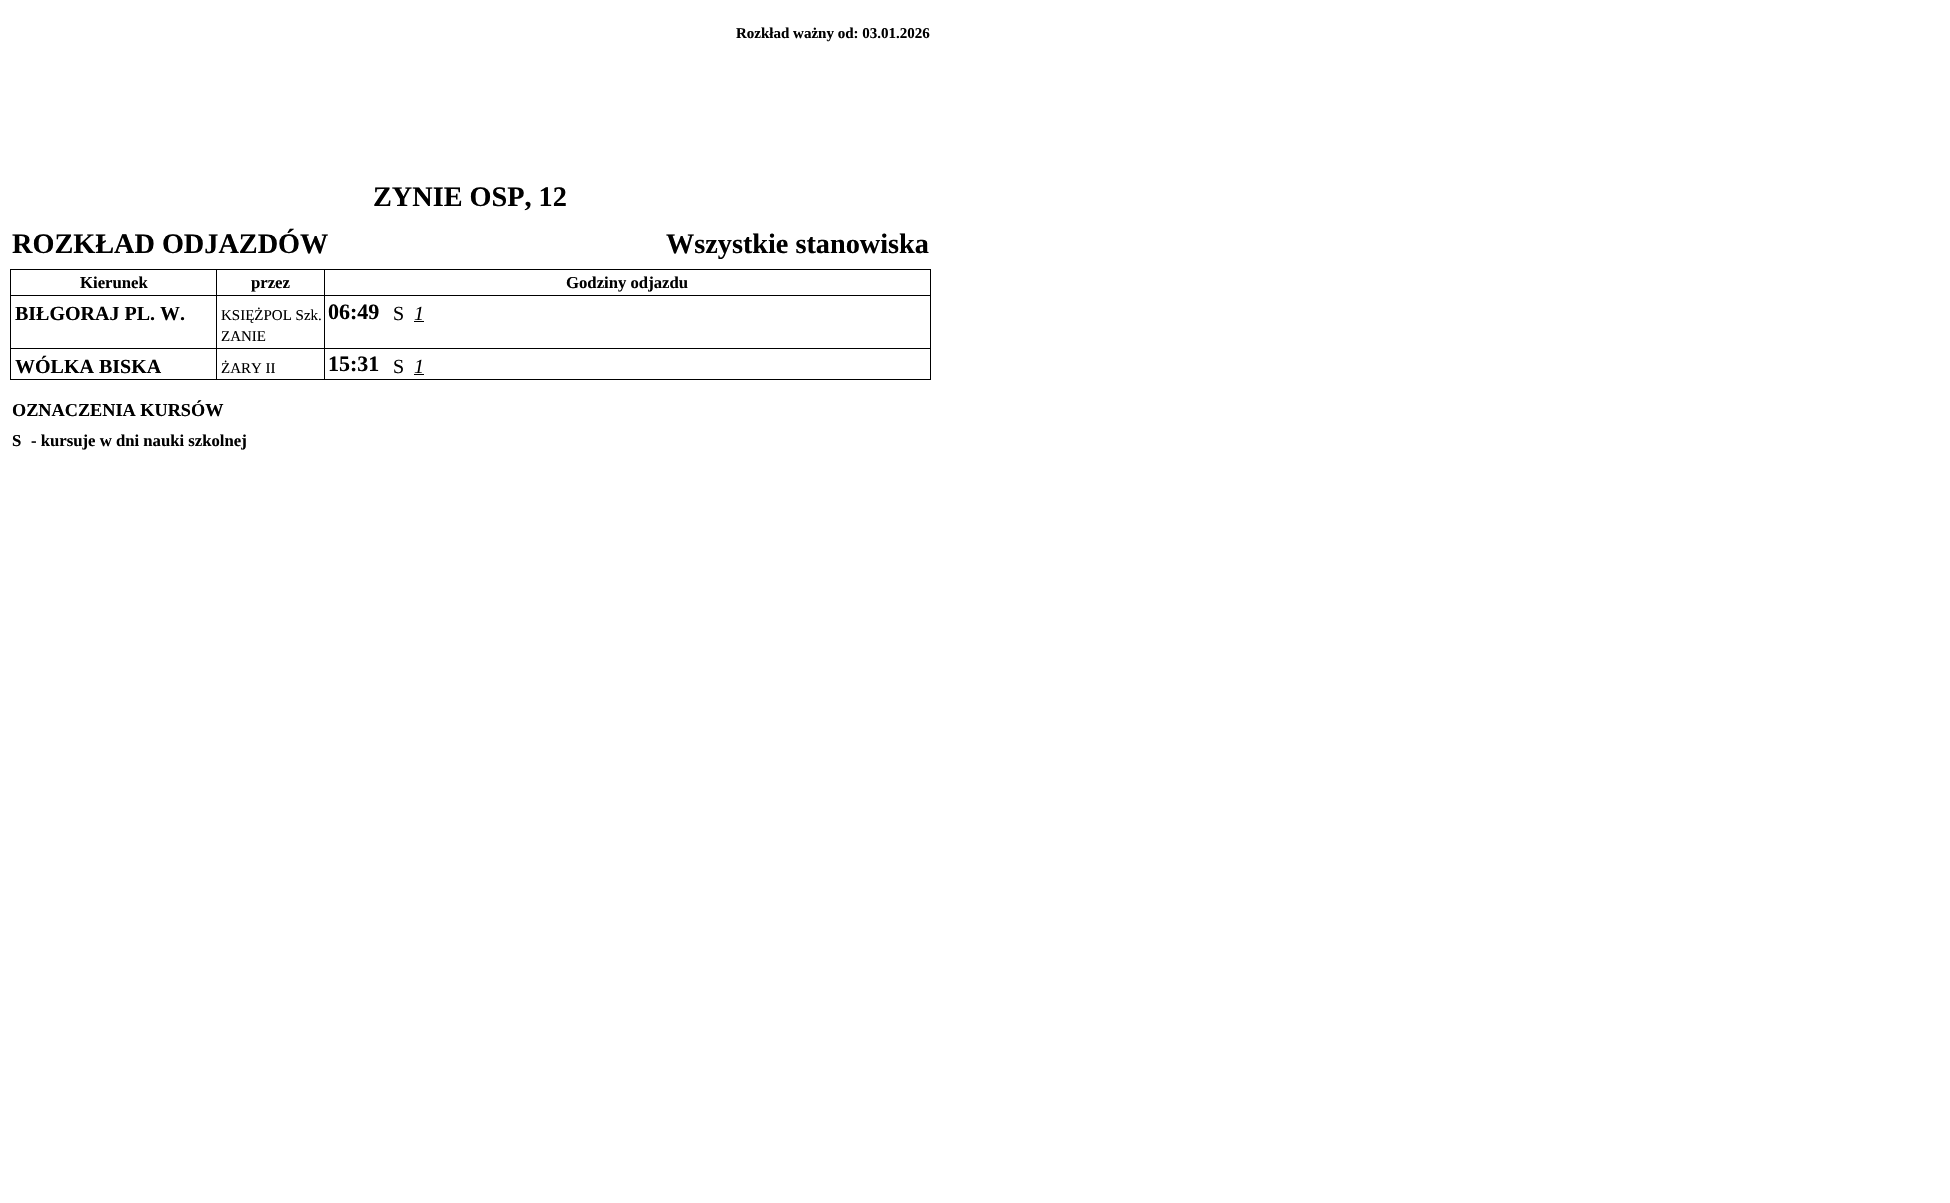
#include "include/core/SkBlurTypes.h"
#include "include/core/SkCanvas.h"
#include "include/core/SkData.h"
#include "include/core/SkFont.h"
#include "include/core/SkFontMgr.h"
#include "include/core/SkImage.h"
#include "include/core/SkMaskFilter.h"
#include "include/core/SkPaint.h"
#include "include/core/SkPathBuilder.h"
#include "include/core/SkTextBlob.h"
#include "include/effects/SkDashPathEffect.h"
#include "include/effects/SkGradientShader.h"
#include "include/utils/SkParsePath.h"

extern sk_sp<SkFontMgr> fontMgr;

static SkFont font(const char* family, int weight, float size, bool italic = false) {
    SkFontStyle style(weight, SkFontStyle::kNormal_Width,
        italic ? SkFontStyle::kItalic_Slant : SkFontStyle::kUpright_Slant);
    SkFont result(fontMgr->matchFamilyStyle(family, style), size);
    result.setSubpixel(true);
    return result;
}

static void drawLabel(SkCanvas* canvas, const char* s, float x, float y, const SkFont& font, SkColor color) {
    SkPaint ink(SkColor4f::FromColor(color));
    ink.setAntiAlias(true);
    canvas->drawString(s, x, y, font, ink);
}

static void fillRect(SkCanvas* canvas, float x, float y, float w, float h, SkColor color) {
    SkPaint ink(SkColor4f::FromColor(color));
    ink.setAntiAlias(true);
    canvas->drawRect(SkRect::MakeXYWH(x, y, w, h), ink);
}

void draw(SkCanvas* canvas) {
    SkPaint paint;
    paint.setAntiAlias(true);
    canvas->clear(0xFFFFFFFF);
    SkFont font1 = font("Liberation Serif", 700, 15);
    drawLabel(canvas, "Rozkład ważny od: 03.01.2026", 736, 38, font1, 0xFF000000);
    SkFont font2 = font("Liberation Serif", 700, 28.25f);
    drawLabel(canvas, "ZYNIE OSP, 12", 373, 206, font2, 0xFF000000);
    drawLabel(canvas, "ROZKŁAD ODJAZDÓW", 12, 253, font2, 0xFF000000);
    drawLabel(canvas, "Wszystkie stanowiska", 666, 253, font2, 0xFF000000);
    fillRect(canvas, 324, 269, 607, 1, 0xFF000000);
    fillRect(canvas, 324, 295, 607, 1, 0xFF000000);
    fillRect(canvas, 324, 348, 607, 1, 0xFF000000);
    fillRect(canvas, 930, 326, 1, 54, 0xFF000000);
    fillRect(canvas, 324, 379, 607, 1, 0xFF000000);
    fillRect(canvas, 324, 348, 1, 32, 0xFF000000);
    fillRect(canvas, 216, 348, 109, 1, 0xFF000000);
    fillRect(canvas, 324, 326, 1, 23, 0xFF000000);
    fillRect(canvas, 324, 295, 1, 33, 0xFF000000);
    fillRect(canvas, 216, 295, 109, 1, 0xFF000000);
    fillRect(canvas, 324, 269, 1, 27, 0xFF000000);
    fillRect(canvas, 216, 269, 109, 1, 0xFF000000);
    fillRect(canvas, 216, 379, 109, 1, 0xFF000000);
    fillRect(canvas, 216, 348, 1, 32, 0xFF000000);
    fillRect(canvas, 10, 348, 208, 1, 0xFF000000);
    fillRect(canvas, 216, 326, 1, 23, 0xFF000000);
    fillRect(canvas, 216, 295, 1, 33, 0xFF000000);
    fillRect(canvas, 10, 295, 208, 1, 0xFF000000);
    fillRect(canvas, 216, 269, 1, 27, 0xFF000000);
    fillRect(canvas, 10, 269, 208, 1, 0xFF000000);
    fillRect(canvas, 10, 379, 208, 1, 0xFF000000);
    fillRect(canvas, 10, 326, 1, 54, 0xFF000000);
    fillRect(canvas, 10, 295, 1, 33, 0xFF000000);
    fillRect(canvas, 10, 269, 1, 27, 0xFF000000);
    SkFont font3 = font("Liberation Serif", 700, 16.7f);
    drawLabel(canvas, "Kierunek", 80, 288, font3, 0xFF000000);
    drawLabel(canvas, "przez", 251, 288, font3, 0xFF000000);
    fillRect(canvas, 930, 295, 1, 33, 0xFF000000);
    fillRect(canvas, 930, 269, 1, 27, 0xFF000000);
    drawLabel(canvas, "Godziny odjazdu", 566, 288, font3, 0xFF000000);
    SkFont font4 = font("Liberation Serif", 700, 20);
    drawLabel(canvas, "BIŁGORAJ PL. W.", 15, 320, font4, 0xFF000000);
    SkFont font5 = font("Liberation Serif", 400, 15);
    drawLabel(canvas, "KSIĘŻPOL Szk.", 221, 320, font5, 0xFF000000);
    SkFont font6 = font("Liberation Serif", 700, 22);
    drawLabel(canvas, "06:49", 328, 319, font6, 0xFF000000);
    SkFont font7 = font("Liberation Serif", 400, 20);
    drawLabel(canvas, "S", 393, 320, font7, 0xFF000000);
    SkFont font8 = font("Liberation Serif", 400, 20, true);
    drawLabel(canvas, "1", 414, 320, font8, 0xFF000000);
    fillRect(canvas, 414, 321, 10, 1, 0xFF000000);
    drawLabel(canvas, "ZANIE", 221, 341, font5, 0xFF000000);
    drawLabel(canvas, "WÓLKA BISKA", 15, 373, font4, 0xFF000000);
    drawLabel(canvas, "ŻARY II", 221, 373, font5, 0xFF000000);
    drawLabel(canvas, "15:31", 328, 371, font6, 0xFF000000);
    drawLabel(canvas, "S", 393, 373, font7, 0xFF000000);
    drawLabel(canvas, "1", 414, 373, font8, 0xFF000000);
    fillRect(canvas, 414, 374, 10, 1, 0xFF000000);
    SkFont font9 = font("Liberation Serif", 700, 18.25f);
    drawLabel(canvas, "OZNACZENIA KURSÓW", 12, 416, font9, 0xFF000000);
    drawLabel(canvas, "S", 12, 446, font3, 0xFF000000);
    drawLabel(canvas, "- kursuje w dni nauki szkolnej", 31, 446, font3, 0xFF000000);
}
